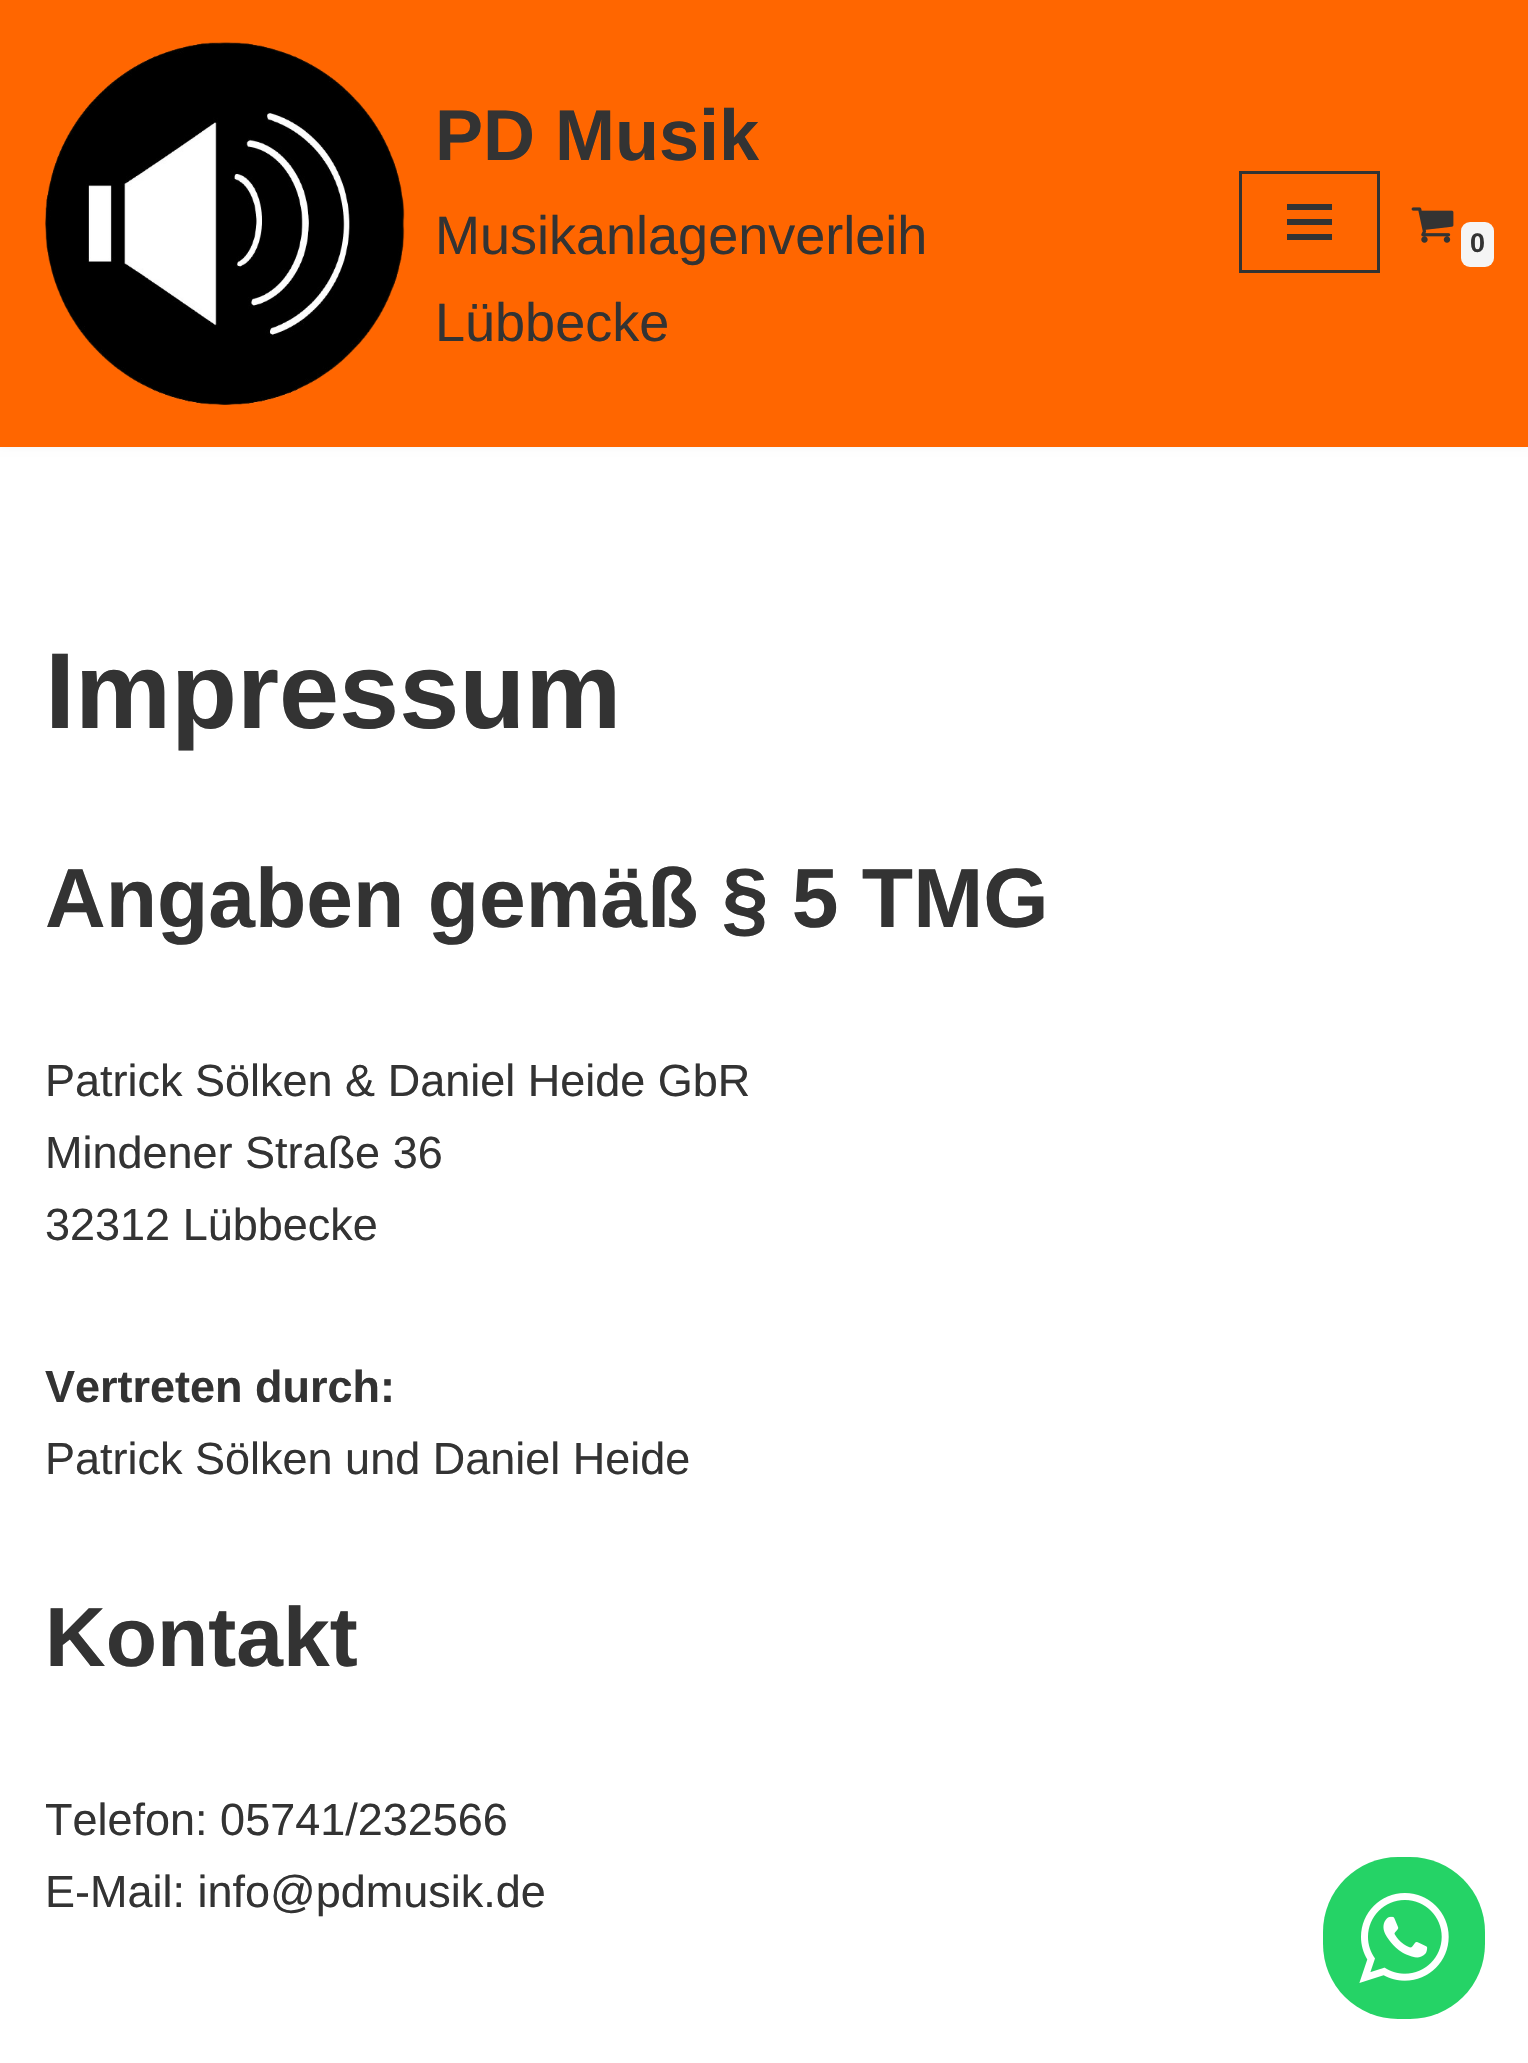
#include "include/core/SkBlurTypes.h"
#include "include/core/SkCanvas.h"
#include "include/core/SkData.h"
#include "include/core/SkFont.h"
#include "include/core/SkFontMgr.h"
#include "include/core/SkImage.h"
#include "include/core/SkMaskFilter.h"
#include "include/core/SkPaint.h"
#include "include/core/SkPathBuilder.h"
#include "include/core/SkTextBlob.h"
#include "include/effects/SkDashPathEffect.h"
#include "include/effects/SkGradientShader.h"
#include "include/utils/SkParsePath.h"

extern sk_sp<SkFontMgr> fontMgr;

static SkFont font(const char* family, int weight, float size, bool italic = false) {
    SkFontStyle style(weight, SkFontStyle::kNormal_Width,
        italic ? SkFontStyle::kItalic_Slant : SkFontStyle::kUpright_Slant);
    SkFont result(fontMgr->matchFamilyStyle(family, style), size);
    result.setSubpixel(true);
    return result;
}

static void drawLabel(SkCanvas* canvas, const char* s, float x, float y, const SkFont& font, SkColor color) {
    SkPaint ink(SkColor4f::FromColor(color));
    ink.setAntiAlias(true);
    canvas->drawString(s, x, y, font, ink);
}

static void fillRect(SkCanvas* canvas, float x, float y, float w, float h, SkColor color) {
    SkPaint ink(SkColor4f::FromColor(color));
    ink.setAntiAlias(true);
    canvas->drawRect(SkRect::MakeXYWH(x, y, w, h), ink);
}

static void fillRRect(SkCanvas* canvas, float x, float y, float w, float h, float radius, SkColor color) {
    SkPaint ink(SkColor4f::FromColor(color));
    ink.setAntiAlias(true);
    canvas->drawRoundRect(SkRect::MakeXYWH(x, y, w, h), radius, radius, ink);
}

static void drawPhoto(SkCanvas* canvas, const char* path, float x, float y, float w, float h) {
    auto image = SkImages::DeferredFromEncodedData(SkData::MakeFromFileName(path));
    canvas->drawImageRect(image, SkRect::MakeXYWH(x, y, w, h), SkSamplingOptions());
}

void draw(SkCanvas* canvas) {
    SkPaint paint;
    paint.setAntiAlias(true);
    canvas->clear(0xFFFFFFFF);
    paint.setColor(0x1A000000);
    paint.setMaskFilter(SkMaskFilter::MakeBlur(kNormal_SkBlurStyle, 4.5f));
    canvas->drawRect(SkRect::MakeXYWH(0, -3, 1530, 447), paint);
    paint.setMaskFilter(nullptr);
    fillRect(canvas, 0, 0, 1528, 447, 0xFFFF6600);
    drawPhoto(canvas, "assets/img1.png", 45, 42, 360, 363);
    SkFont font1 = font("Liberation Sans", 700, 72);
    drawLabel(canvas, "PD Musik", 435, 160, font1, 0xFF333333);
    SkFont font2 = font("Liberation Sans", 400, 54);
    drawLabel(canvas, "Musikanlagenverleih", 435, 254, font2, 0xFF333333);
    drawLabel(canvas, "Lübbecke", 435, 341, font2, 0xFF333333);
    paint.setStroke(true);
    paint.setStrokeWidth(3);
    paint.setColor(0xFF333333);
    canvas->drawRect(SkRect::MakeXYWH(1240.5f, 172.5f, 138, 99), paint);
    fillRect(canvas, 1287, 204, 45, 6, 0xFF333333);
    fillRect(canvas, 1287, 219, 45, 6, 0xFF333333);
    fillRect(canvas, 1287, 234, 45, 6, 0xFF333333);
    drawPhoto(canvas, "assets/img2.png", 1411, 207, 43, 36);
    fillRRect(canvas, 1461, 222, 33, 45, 9, 0xFFF5F5F5);
    SkFont font3 = font("Liberation Sans", 700, 27);
    drawLabel(canvas, "0", 1470, 252, font3, 0xFF333333);
    SkFont font4 = font("Liberation Sans", 700, 108);
    drawLabel(canvas, "Impressum", 45, 728, font4, 0xFF333333);
    SkFont font5 = font("Liberation Sans", 700, 84);
    drawLabel(canvas, "Angaben gemäß § 5 TMG", 45, 927, font5, 0xFF333333);
    SkFont font6 = font("Liberation Sans", 400, 45);
    drawLabel(canvas, "Patrick Sölken & Daniel Heide GbR", 45, 1096, font6, 0xFF333333);
    drawLabel(canvas, "Mindener Straße 36", 45, 1168, font6, 0xFF333333);
    drawLabel(canvas, "32312 Lübbecke", 45, 1240, font6, 0xFF333333);
    SkFont font7 = font("Liberation Sans", 700, 45);
    drawLabel(canvas, "Vertreten durch:", 45, 1402, font7, 0xFF333333);
    drawLabel(canvas, "Patrick Sölken und Daniel Heide", 45, 1474, font6, 0xFF333333);
    drawLabel(canvas, "Kontakt", 45, 1666, font5, 0xFF333333);
    drawLabel(canvas, "Telefon: 05741/232566", 45, 1835, font6, 0xFF333333);
    drawLabel(canvas, "E-Mail: info@pdmusik.de", 45, 1907, font6, 0xFF333333);
    fillRRect(canvas, 1323, 1857, 162, 162, 75, 0xFF25D366);
    drawPhoto(canvas, "assets/img3.png", 1359, 1893, 90, 90);
}
